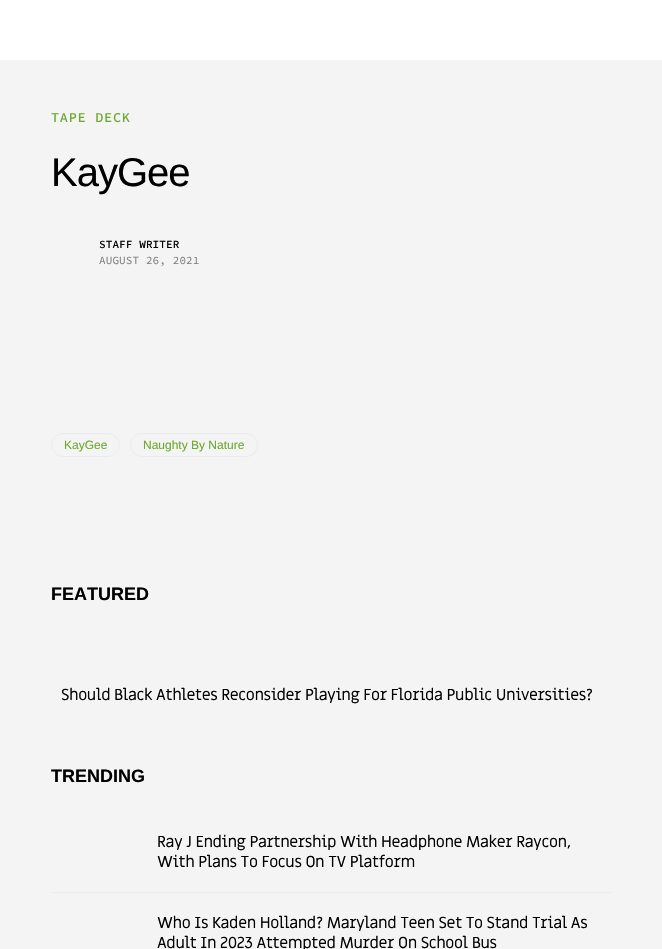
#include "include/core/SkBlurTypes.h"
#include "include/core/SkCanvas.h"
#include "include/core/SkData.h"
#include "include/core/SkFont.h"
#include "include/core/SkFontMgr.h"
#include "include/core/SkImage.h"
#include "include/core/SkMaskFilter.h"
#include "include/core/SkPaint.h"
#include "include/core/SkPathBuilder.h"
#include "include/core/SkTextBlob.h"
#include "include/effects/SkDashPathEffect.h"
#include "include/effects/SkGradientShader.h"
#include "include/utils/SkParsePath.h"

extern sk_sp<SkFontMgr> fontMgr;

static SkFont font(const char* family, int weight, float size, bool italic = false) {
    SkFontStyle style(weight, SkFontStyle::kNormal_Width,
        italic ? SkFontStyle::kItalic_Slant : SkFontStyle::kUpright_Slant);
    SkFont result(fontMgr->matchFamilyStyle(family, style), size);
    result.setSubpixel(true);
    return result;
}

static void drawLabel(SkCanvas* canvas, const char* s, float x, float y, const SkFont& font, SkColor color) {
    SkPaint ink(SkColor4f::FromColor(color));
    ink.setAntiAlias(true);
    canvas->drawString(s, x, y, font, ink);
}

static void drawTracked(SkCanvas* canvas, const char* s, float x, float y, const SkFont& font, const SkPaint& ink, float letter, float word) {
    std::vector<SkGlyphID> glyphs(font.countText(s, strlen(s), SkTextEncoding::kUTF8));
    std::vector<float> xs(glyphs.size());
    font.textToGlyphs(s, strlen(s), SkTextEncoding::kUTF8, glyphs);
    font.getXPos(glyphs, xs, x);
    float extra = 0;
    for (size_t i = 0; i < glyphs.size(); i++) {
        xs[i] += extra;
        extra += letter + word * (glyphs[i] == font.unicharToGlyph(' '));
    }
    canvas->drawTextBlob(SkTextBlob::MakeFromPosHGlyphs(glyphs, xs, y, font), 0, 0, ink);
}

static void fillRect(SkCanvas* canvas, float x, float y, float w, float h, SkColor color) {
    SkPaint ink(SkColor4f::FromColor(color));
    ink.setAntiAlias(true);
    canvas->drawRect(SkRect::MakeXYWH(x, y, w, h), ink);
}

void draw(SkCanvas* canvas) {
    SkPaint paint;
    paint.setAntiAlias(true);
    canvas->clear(0xFFF4F4F4);
    fillRect(canvas, 0, 0, 662, 60, 0xFFFFFFFF);
    SkFont font1 = font("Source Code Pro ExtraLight", 500, 13.5f);
    paint.setColor(0xFF6CA92E);
    drawTracked(canvas, "TAPE DECK", 51, 122, font1, paint, 0.75f, 0);
    SkFont font2 = font("Liberation Sans", 400, 40);
    paint.setColor(0xFF000000);
    drawTracked(canvas, "KayGee", 51, 186, font2, paint, -1, 0);
    SkFont font3 = font("Source Code Pro ExtraLight", 500, 11);
    drawTracked(canvas, "STAFF WRITER", 99, 248, font3, paint, 0.1f, 0);
    SkFont font4 = font("Source Code Pro ExtraLight", 400, 11);
    paint.setColor(0xFF818181);
    drawTracked(canvas, "AUGUST 26, 2021", 99, 264, font4, paint, 0.1f, 0);
    paint.setStroke(true);
    paint.setStrokeWidth(1);
    paint.setColor(0xFFE9ECEF);
    canvas->drawRoundRect(SkRect::MakeXYWH(51.5f, 433.5f, 68, 23), 11.5f, 11.5f, paint);
    SkFont font5 = font("Liberation Sans", 400, 12);
    drawLabel(canvas, "KayGee", 64, 449, font5, 0xFF6CA92E);
    canvas->drawRoundRect(SkRect::MakeXYWH(130.5f, 433.5f, 127, 23), 11.5f, 11.5f, paint);
    drawLabel(canvas, "Naughty By Nature", 143, 449, font5, 0xFF6CA92E);
    SkFont font6 = font("Liberation Sans", 700, 18);
    drawLabel(canvas, "FEATURED", 51, 600, font6, 0xFF000000);
    SkFont font7 = font("Miriam Libre", 400, 16);
    paint.setStroke(false);
    paint.setColor(0xFF000000);
    drawTracked(canvas, "Should Black Athletes Reconsider Playing For Florida Public Universities?", 61, 700, font7, paint, -0.4f, 0);
    drawLabel(canvas, "TRENDING", 51, 782, font6, 0xFF000000);
    drawTracked(canvas, "Ray J Ending Partnership With Headphone Maker Raycon,", 157, 847, font7, paint, -0.4f, 0);
    drawTracked(canvas, "With Plans To Focus On TV Platform", 157, 867, font7, paint, -0.4f, 0);
    fillRect(canvas, 51, 892, 560, 1, 0xFFE9ECEF);
    drawTracked(canvas, "Who Is Kaden Holland? Maryland Teen Set To Stand Trial As", 157, 928, font7, paint, -0.4f, 0);
    drawTracked(canvas, "Adult In 2023 Attempted Murder On School Bus", 157, 948, font7, paint, -0.4f, 0);
}
